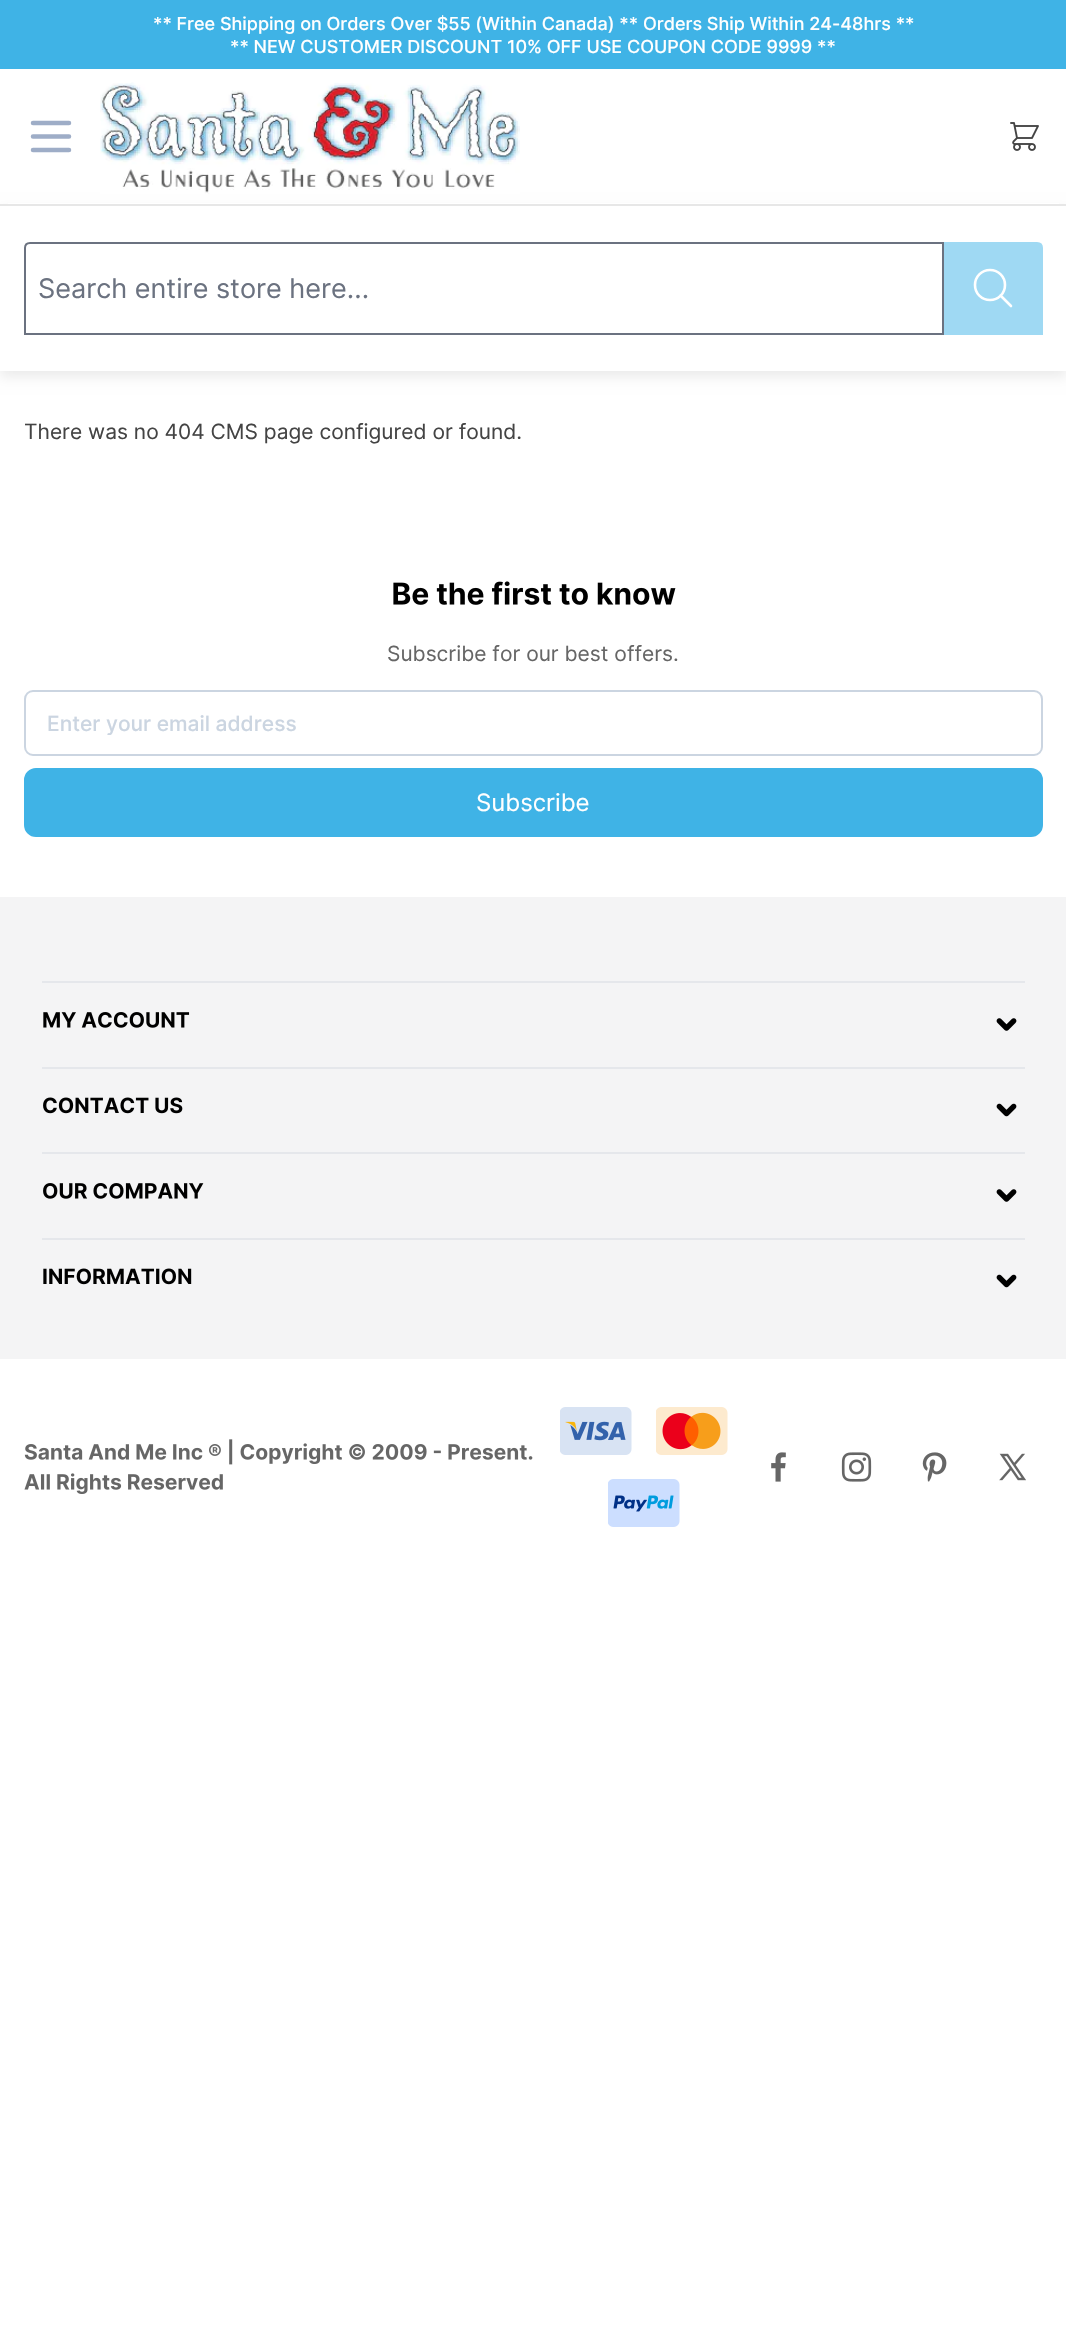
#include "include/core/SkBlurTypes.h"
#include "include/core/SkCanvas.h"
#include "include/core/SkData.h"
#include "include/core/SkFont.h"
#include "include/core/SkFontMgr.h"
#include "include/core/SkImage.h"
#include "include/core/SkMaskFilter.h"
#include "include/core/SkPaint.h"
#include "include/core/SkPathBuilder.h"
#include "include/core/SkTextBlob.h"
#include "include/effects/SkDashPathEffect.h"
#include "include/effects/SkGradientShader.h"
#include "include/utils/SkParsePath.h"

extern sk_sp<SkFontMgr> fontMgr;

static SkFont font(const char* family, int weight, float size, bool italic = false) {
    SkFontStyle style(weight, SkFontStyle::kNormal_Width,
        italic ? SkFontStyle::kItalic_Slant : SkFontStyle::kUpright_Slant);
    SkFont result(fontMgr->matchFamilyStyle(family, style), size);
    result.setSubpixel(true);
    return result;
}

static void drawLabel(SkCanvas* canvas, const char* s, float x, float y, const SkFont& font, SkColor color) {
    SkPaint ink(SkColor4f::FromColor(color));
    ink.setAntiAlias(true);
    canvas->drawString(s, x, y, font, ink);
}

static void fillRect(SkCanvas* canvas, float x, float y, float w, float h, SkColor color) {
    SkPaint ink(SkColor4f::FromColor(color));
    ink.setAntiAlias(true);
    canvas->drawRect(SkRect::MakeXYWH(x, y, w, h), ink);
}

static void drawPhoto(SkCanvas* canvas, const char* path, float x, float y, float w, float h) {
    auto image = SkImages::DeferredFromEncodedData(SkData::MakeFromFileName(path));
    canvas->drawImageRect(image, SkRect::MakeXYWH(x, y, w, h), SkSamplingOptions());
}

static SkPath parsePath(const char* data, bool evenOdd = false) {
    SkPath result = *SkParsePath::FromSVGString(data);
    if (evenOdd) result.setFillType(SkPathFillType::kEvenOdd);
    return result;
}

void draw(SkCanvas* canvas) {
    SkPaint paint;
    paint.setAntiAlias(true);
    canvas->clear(0xFFFFFFFF);
    fillRect(canvas, 0, 0, 1066, 69, 0xFF3FB3E6);
    SkFont font1 = font("Inter", 500, 18);
    drawLabel(canvas, "** Free Shipping on Orders Over $55 (Within Canada) ** Orders Ship Within 24-48hrs **", 153, 30, font1, 0xFFFFFFFF);
    drawLabel(canvas, "** NEW CUSTOMER DISCOUNT 10% OFF USE COUPON CODE 9999 **", 230, 53, font1, 0xFFFFFFFF);
    paint.setColor(0x14000000);
    paint.setMaskFilter(SkMaskFilter::MakeBlur(kNormal_SkBlurStyle, 6));
    canvas->drawRect(SkRect::MakeXYWH(0, 210, 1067, 167), paint);
    paint.setMaskFilter(nullptr);
    fillRect(canvas, 8, 203, 1051, 1, 0xFFFFFFFF);
    paint.setStroke(true);
    paint.setStrokeWidth(4.5f);
    paint.setStrokeCap(SkPaint::kRound_Cap);
    paint.setStrokeJoin(SkPaint::kRound_Join);
    paint.setColor(0xFF9EADC7);
    canvas->drawPath(parsePath("M33 123H69M33 136.5H69M33 150H69"), paint);
    drawPhoto(canvas, "assets/img1.png", 100, 82, 420, 112);
    drawPhoto(canvas, "assets/img2.png", 1010, 122, 29, 29);
    fillRect(canvas, 0, 206, 1066, 165, 0xFFFFFFFF);
    fillRect(canvas, 0, 204, 1066, 2, 0xFFE7E7E7);
    paint.setStrokeWidth(2);
    paint.setStrokeCap(SkPaint::kButt_Cap);
    paint.setStrokeJoin(SkPaint::kMiter_Join);
    paint.setColor(0xFF6B7280);
    canvas->drawPath(parsePath("M30 243H943V334H25V248C25 245 27 243 30 243Z"), paint);
    SkFont font2 = font("Inter", 400, 27);
    drawLabel(canvas, "Search entire store here...", 38, 298, font2, 0xFF6B7280);
    paint.setStroke(false);
    paint.setColor(0xFF9FD9F3);
    canvas->drawPath(parsePath("M945 243H1037C1040 243 1042 245 1042 248V334H945Z"), paint);
    paint.setStroke(true);
    canvas->drawPath(parsePath("M945 243H1037C1040 243 1042 245 1042 248V334H945Z"), paint);
    paint.setStrokeWidth(2.6f);
    paint.setStrokeCap(SkPaint::kRound_Cap);
    paint.setStrokeJoin(SkPaint::kRound_Join);
    paint.setColor(0xFFFFFFFF);
    canvas->drawPath(parsePath("M990 300C998.5 300 1005 293.5 1005 285C1005 276.5 998.5 270 990 270C981.5 270 975 276.5 975 285C975 293.5 981.5 300 990 300ZM1000.5 295.5L1011 306"), paint);
    SkFont font3 = font("Inter", 400, 21);
    drawLabel(canvas, "There was no 404 CMS page configured or found.", 24, 439, font3, 0xFF444444);
    drawPhoto(canvas, "assets/img3.png", 393, 581, 283, 24);
    drawLabel(canvas, "Subscribe for our best offers.", 387, 661, font3, 0xFF666666);
    paint.setStrokeWidth(2);
    paint.setStrokeCap(SkPaint::kButt_Cap);
    paint.setStrokeJoin(SkPaint::kMiter_Join);
    paint.setColor(0xFFCBD5E1);
    canvas->drawRoundRect(SkRect::MakeXYWH(25, 691, 1017, 64), 8, 8, paint);
    canvas->save();
    canvas->clipRect(SkRect::MakeXYWH(47, 710, 973, 25));
    SkFont font4 = font("Inter", 500, 21);
    drawLabel(canvas, "Enter your email address", 47, 731, font4, 0xFFCBD5E1);
    canvas->restore();
    paint.setStroke(false);
    paint.setColor(0xFF3FB3E6);
    canvas->drawRoundRect(SkRect::MakeXYWH(25, 769, 1017, 67), 11, 11, paint);
    paint.setStroke(true);
    canvas->drawRoundRect(SkRect::MakeXYWH(25, 769, 1017, 67), 11, 11, paint);
    SkFont font5 = font("Inter", 400, 24);
    drawLabel(canvas, "Subscribe", 476, 811, font5, 0xFFFFFFFF);
    fillRect(canvas, 0, 897, 1066, 462, 0xFFF4F4F5);
    fillRect(canvas, 42, 981, 983, 2, 0xFFE5E7EB);
    drawPhoto(canvas, "assets/img4.png", 43, 1012, 147, 16);
    drawPhoto(canvas, "assets/img5.png", 996, 1018, 21, 13);
    fillRect(canvas, 42, 1067, 983, 2, 0xFFE5E7EB);
    drawPhoto(canvas, "assets/img6.png", 43, 1097, 140, 17);
    drawPhoto(canvas, "assets/img7.png", 996, 1103, 21, 14);
    fillRect(canvas, 42, 1152, 983, 2, 0xFFE5E7EB);
    drawPhoto(canvas, "assets/img8.png", 43, 1183, 161, 16);
    drawPhoto(canvas, "assets/img5.png", 996, 1189, 21, 13);
    fillRect(canvas, 42, 1238, 983, 2, 0xFFE5E7EB);
    drawPhoto(canvas, "assets/img9.png", 43, 1268, 149, 17);
    drawPhoto(canvas, "assets/img7.png", 996, 1274, 21, 14);
    drawPhoto(canvas, "assets/img10.png", 24, 1439, 509, 26);
    drawPhoto(canvas, "assets/img11.png", 24, 1473, 199, 21);
    drawPhoto(canvas, "assets/img12.png", 560, 1407, 72, 48);
    drawPhoto(canvas, "assets/img13.png", 656, 1407, 72, 48);
    drawPhoto(canvas, "assets/img14.png", 608, 1479, 72, 48);
    drawPhoto(canvas, "assets/img15.png", 771, 1452, 15, 30);
    drawPhoto(canvas, "assets/img16.png", 841, 1452, 31, 30);
    drawPhoto(canvas, "assets/img17.png", 922, 1452, 25, 30);
    drawPhoto(canvas, "assets/img18.png", 999, 1453, 27, 28);
}
